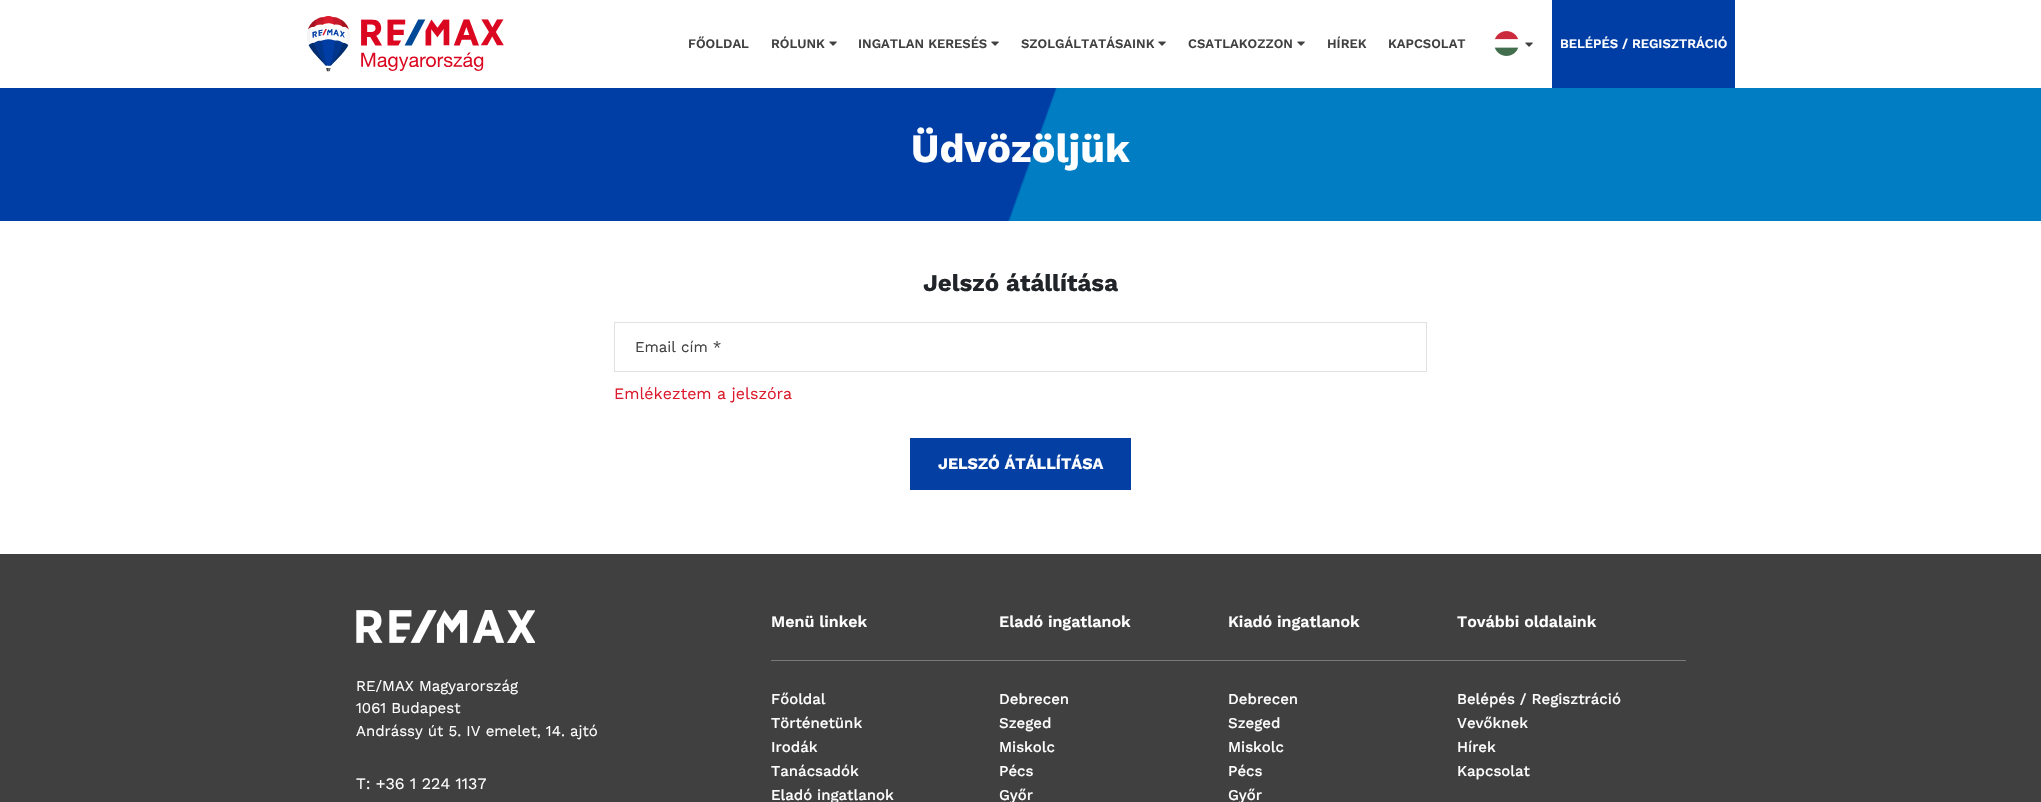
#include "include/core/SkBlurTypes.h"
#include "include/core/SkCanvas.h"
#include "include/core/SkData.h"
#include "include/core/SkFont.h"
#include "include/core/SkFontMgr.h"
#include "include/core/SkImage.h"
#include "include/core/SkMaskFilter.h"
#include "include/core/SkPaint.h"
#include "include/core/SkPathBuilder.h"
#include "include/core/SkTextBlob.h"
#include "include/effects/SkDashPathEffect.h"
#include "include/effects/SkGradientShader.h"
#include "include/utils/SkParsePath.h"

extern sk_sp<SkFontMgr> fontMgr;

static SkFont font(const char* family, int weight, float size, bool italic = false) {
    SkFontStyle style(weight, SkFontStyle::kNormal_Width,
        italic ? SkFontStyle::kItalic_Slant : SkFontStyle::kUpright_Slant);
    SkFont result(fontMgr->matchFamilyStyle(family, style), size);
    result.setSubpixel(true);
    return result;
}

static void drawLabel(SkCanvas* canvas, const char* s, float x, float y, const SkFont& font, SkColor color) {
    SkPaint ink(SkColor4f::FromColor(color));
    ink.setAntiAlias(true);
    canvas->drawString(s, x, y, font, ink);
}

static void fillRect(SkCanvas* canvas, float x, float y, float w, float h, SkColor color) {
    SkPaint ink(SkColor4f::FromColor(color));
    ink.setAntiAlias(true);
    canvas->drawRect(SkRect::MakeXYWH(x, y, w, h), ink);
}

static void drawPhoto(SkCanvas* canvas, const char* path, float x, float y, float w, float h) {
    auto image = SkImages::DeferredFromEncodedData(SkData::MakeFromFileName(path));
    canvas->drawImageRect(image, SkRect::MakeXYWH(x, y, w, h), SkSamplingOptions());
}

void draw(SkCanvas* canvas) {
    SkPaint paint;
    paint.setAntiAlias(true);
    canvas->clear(0xFFFFFFFF);
    drawPhoto(canvas, "assets/img1.png", 307, 16, 197, 56);
    SkFont font1 = font("Work Sans", 600, 13);
    drawLabel(canvas, "FŐOLDAL", 688, 48, font1, 0xFF404041);
    drawLabel(canvas, "RÓLUNK", 771, 48, font1, 0xFF404041);
    drawPhoto(canvas, "assets/img2.png", 829, 41, 8, 5);
    drawLabel(canvas, "INGATLAN KERESÉS", 858, 48, font1, 0xFF404041);
    drawPhoto(canvas, "assets/img2.png", 991, 41, 8, 5);
    drawLabel(canvas, "SZOLGÁLTATÁSAINK", 1021, 48, font1, 0xFF404041);
    drawPhoto(canvas, "assets/img2.png", 1158, 41, 8, 5);
    drawLabel(canvas, "CSATLAKOZZON", 1188, 48, font1, 0xFF404041);
    drawPhoto(canvas, "assets/img2.png", 1297, 41, 8, 5);
    drawLabel(canvas, "HÍREK", 1327, 48, font1, 0xFF404041);
    drawLabel(canvas, "KAPCSOLAT", 1388, 48, font1, 0xFF404041);
    drawPhoto(canvas, "assets/img3.png", 1494, 31, 25, 25);
    drawPhoto(canvas, "assets/img2.png", 1525, 42, 8, 5);
    fillRect(canvas, 1552, 0, 183, 88, 0xFF003DA5);
    drawLabel(canvas, "BELÉPÉS / REGISZTRÁCIÓ", 1560, 48, font1, 0xFFFFFFFF);
    fillRect(canvas, 1007, 88, 1034, 133, 0xFF007DC3);
    drawPhoto(canvas, "assets/img4.png", 0, 88, 1058, 133);
    SkFont font2 = font("Work Sans", 700, 40);
    drawLabel(canvas, "Üdvözöljük", 911, 162, font2, 0xFFFFFFFF);
    SkFont font3 = font("Work Sans", 700, 24);
    drawLabel(canvas, "Jelszó átállítása", 923, 291, font3, 0xFF212529);
    paint.setStroke(true);
    paint.setStrokeWidth(1);
    paint.setColor(0xFFE1E1E1);
    canvas->drawRect(SkRect::MakeXYWH(614.5f, 322.5f, 812, 49), paint);
    SkFont font4 = font("Work Sans", 400, 15);
    drawLabel(canvas, "Email cím *", 635, 352, font4, 0xFF404041);
    SkFont font5 = font("Work Sans", 400, 16);
    drawLabel(canvas, "Emlékeztem a jelszóra", 614, 399, font5, 0xFFDC1C2E);
    fillRect(canvas, 910, 438, 221, 52, 0xFF043FA3);
    SkFont font6 = font("Work Sans", 700, 16);
    drawLabel(canvas, "JELSZÓ ÁTÁLLÍTÁSA", 938, 469, font6, 0xFFFFFFFF);
    fillRect(canvas, 0, 554, 2041, 248, 0xFF404041);
    drawPhoto(canvas, "assets/img5.png", 356, 610, 179, 33);
    drawLabel(canvas, "RE/MAX Magyarország", 356, 691, font4, 0xFFFFFFFF);
    drawLabel(canvas, "1061 Budapest", 356, 713, font4, 0xFFFFFFFF);
    drawLabel(canvas, "Andrássy út 5. IV emelet, 14. ajtó", 356, 736, font4, 0xFFFFFFFF);
    drawLabel(canvas, "T: +36 1 224 1137", 356, 789, font5, 0xFFFFFFFF);
    fillRect(canvas, 771, 660, 915, 1, 0xFF7A7A7A);
    SkFont font7 = font("Work Sans", 600, 16);
    drawLabel(canvas, "Menü linkek", 771, 627, font7, 0xFFFFFFFF);
    SkFont font8 = font("Work Sans", 500, 15);
    drawLabel(canvas, "Főoldal", 771, 704, font8, 0xFFFFFFFF);
    drawLabel(canvas, "Történetünk", 771, 728, font8, 0xFFFFFFFF);
    drawLabel(canvas, "Irodák", 771, 752, font8, 0xFFFFFFFF);
    drawLabel(canvas, "Tanácsadók", 771, 776, font8, 0xFFFFFFFF);
    drawLabel(canvas, "Eladó ingatlanok", 771, 800, font8, 0xFFFFFFFF);
    drawLabel(canvas, "Eladó ingatlanok", 999, 627, font7, 0xFFFFFFFF);
    drawLabel(canvas, "Debrecen", 999, 704, font8, 0xFFFFFFFF);
    drawLabel(canvas, "Szeged", 999, 728, font8, 0xFFFFFFFF);
    drawLabel(canvas, "Miskolc", 999, 752, font8, 0xFFFFFFFF);
    drawLabel(canvas, "Pécs", 999, 776, font8, 0xFFFFFFFF);
    drawLabel(canvas, "Győr", 999, 800, font8, 0xFFFFFFFF);
    drawLabel(canvas, "Kiadó ingatlanok", 1228, 627, font7, 0xFFFFFFFF);
    drawLabel(canvas, "Debrecen", 1228, 704, font8, 0xFFFFFFFF);
    drawLabel(canvas, "Szeged", 1228, 728, font8, 0xFFFFFFFF);
    drawLabel(canvas, "Miskolc", 1228, 752, font8, 0xFFFFFFFF);
    drawLabel(canvas, "Pécs", 1228, 776, font8, 0xFFFFFFFF);
    drawLabel(canvas, "Győr", 1228, 800, font8, 0xFFFFFFFF);
    drawLabel(canvas, "További oldalaink", 1457, 627, font7, 0xFFFFFFFF);
    drawLabel(canvas, "Belépés / Regisztráció", 1457, 704, font8, 0xFFFFFFFF);
    drawLabel(canvas, "Vevőknek", 1457, 728, font8, 0xFFFFFFFF);
    drawLabel(canvas, "Hírek", 1457, 752, font8, 0xFFFFFFFF);
    drawLabel(canvas, "Kapcsolat", 1457, 776, font8, 0xFFFFFFFF);
}
